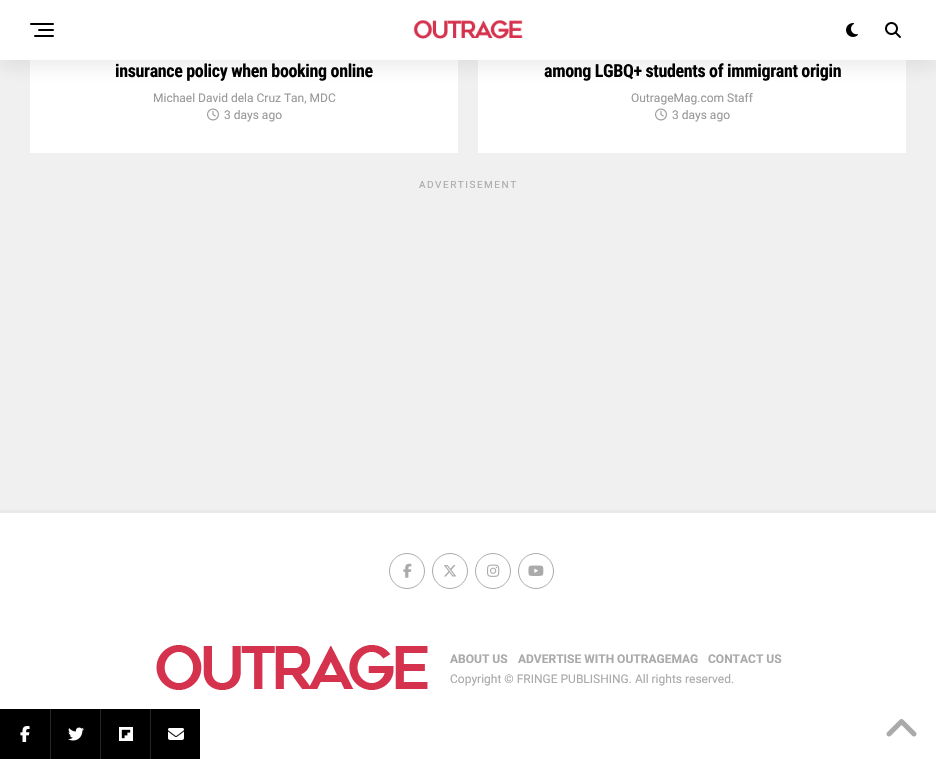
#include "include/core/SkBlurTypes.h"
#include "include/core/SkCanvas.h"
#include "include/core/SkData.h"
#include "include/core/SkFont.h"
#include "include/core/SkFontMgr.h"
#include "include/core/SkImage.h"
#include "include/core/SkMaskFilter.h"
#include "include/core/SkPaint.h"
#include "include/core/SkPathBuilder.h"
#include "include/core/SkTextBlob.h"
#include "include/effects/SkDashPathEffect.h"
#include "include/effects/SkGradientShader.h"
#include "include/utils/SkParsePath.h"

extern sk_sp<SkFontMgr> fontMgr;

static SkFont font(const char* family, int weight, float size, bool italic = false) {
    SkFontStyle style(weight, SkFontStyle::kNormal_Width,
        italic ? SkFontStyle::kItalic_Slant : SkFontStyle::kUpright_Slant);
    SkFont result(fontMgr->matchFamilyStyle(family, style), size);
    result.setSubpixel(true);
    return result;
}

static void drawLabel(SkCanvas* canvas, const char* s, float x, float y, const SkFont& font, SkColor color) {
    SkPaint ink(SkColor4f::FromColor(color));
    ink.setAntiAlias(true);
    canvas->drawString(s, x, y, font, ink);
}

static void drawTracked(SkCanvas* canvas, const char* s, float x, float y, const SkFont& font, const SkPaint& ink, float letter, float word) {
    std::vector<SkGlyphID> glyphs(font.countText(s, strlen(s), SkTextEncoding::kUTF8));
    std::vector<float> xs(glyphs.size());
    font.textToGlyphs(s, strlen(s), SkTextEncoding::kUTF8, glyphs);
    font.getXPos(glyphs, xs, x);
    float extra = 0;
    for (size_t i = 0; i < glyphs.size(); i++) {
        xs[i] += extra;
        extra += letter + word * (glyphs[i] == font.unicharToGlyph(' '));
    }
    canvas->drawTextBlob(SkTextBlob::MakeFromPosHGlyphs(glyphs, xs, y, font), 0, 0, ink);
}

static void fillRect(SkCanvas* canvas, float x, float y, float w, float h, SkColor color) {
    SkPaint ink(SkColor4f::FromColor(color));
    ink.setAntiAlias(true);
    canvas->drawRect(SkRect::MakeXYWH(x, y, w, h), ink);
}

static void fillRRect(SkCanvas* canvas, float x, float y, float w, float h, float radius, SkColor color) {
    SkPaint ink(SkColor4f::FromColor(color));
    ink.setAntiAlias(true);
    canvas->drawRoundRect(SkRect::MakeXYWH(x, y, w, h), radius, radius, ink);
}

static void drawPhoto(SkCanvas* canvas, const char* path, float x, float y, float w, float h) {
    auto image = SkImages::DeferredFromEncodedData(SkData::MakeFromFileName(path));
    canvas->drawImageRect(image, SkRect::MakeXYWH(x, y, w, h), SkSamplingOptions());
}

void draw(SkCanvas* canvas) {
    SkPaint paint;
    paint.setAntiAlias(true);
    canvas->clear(0xFFF0F0F0);
    fillRect(canvas, 30, 60, 428, 93, 0xFFFFFFFF);
    fillRect(canvas, 478, 60, 428, 93, 0xFFFFFFFF);
    paint.setColor(0x1415151E);
    paint.setMaskFilter(SkMaskFilter::MakeBlur(kNormal_SkBlurStyle, 8));
    canvas->drawRect(SkRect::MakeXYWH(0, 8, 936, 60), paint);
    paint.setMaskFilter(nullptr);
    fillRect(canvas, 0, 0, 936, 60, 0xFFFFFFFF);
    fillRRect(canvas, 30, 23, 24, 2, 1, 0xFF000000);
    fillRRect(canvas, 38, 29, 16, 2, 1, 0xFF000000);
    fillRRect(canvas, 34, 35, 20, 2, 1, 0xFF000000);
    drawPhoto(canvas, "assets/img1.png", 413, 20, 110, 19);
    drawPhoto(canvas, "assets/img2.png", 846, 23, 12, 14);
    drawPhoto(canvas, "assets/img3.png", 885, 22, 16, 16);
    SkFont font1 = font("Roboto Condensed", 700, 18);
    paint.setColor(0xFF000000);
    drawTracked(canvas, "insurance policy when booking online", 115, 77, font1, paint, -0.35f, 0);
    SkFont font2 = font("Roboto", 400, 12);
    drawLabel(canvas, "Michael David dela Cruz Tan, MDC", 153, 102, font2, 0xFF999999);
    drawPhoto(canvas, "assets/img4.png", 207, 108, 12, 13);
    drawLabel(canvas, "3 days ago", 224, 119, font2, 0xFF999999);
    drawTracked(canvas, "among LGBQ+ students of immigrant origin", 544, 77, font1, paint, -0.35f, 0);
    drawLabel(canvas, "OutrageMag.com Staff", 631, 102, font2, 0xFF999999);
    drawPhoto(canvas, "assets/img4.png", 655, 108, 12, 13);
    drawLabel(canvas, "3 days ago", 672, 119, font2, 0xFF999999);
    SkFont font3 = font("Roboto", 400, 10);
    paint.setColor(0xFFAAAAAA);
    drawTracked(canvas, "ADVERTISEMENT", 419, 188, font3, paint, 1.5f, 0);
    fillRect(canvas, 0, 513, 936, 246, 0xFFFFFFFF);
    fillRect(canvas, 0, 709, 50, 50, 0xFF000000);
    drawPhoto(canvas, "assets/img5.png", 20, 726, 10, 16);
    fillRect(canvas, 51, 709, 49, 50, 0xFF000000);
    fillRect(canvas, 50, 709, 1, 50, 0xFF262626);
    drawPhoto(canvas, "assets/img6.png", 68, 727, 16, 14);
    fillRect(canvas, 101, 709, 49, 50, 0xFF000000);
    fillRect(canvas, 100, 709, 1, 50, 0xFF262626);
    drawPhoto(canvas, "assets/img7.png", 119, 727, 14, 14);
    fillRect(canvas, 151, 709, 49, 50, 0xFF000000);
    fillRect(canvas, 150, 709, 1, 50, 0xFF262626);
    drawPhoto(canvas, "assets/img8.png", 168, 728, 16, 12);
    fillRect(canvas, 0, 510, 936, 3, 0xFFE9E9E9);
    paint.setStroke(true);
    paint.setStrokeWidth(1);
    canvas->drawCircle(407, 571, 17.5f, paint);
    drawPhoto(canvas, "assets/img9.png", 403, 563, 9, 15);
    canvas->drawCircle(450, 571, 17.5f, paint);
    drawPhoto(canvas, "assets/img10.png", 444, 565, 13, 12);
    canvas->drawCircle(493, 571, 17.5f, paint);
    drawPhoto(canvas, "assets/img11.png", 487, 564, 13, 13);
    canvas->drawCircle(536, 571, 17.5f, paint);
    drawPhoto(canvas, "assets/img12.png", 528, 565, 16, 11);
    drawPhoto(canvas, "assets/img13.png", 156, 645, 272, 45);
    SkFont font4 = font("Roboto", 700, 12);
    drawLabel(canvas, "ABOUT US", 450, 663, font4, 0xFFAAAAAA);
    drawLabel(canvas, "ADVERTISE WITH OUTRAGEMAG", 518, 663, font4, 0xFFAAAAAA);
    drawLabel(canvas, "CONTACT US", 708, 663, font4, 0xFFAAAAAA);
    drawLabel(canvas, "Copyright © FRINGE PUBLISHING. All rights reserved.", 450, 683, font2, 0xFFAAAAAA);
    drawPhoto(canvas, "assets/img14.png", 886, 719, 31, 18);
}
